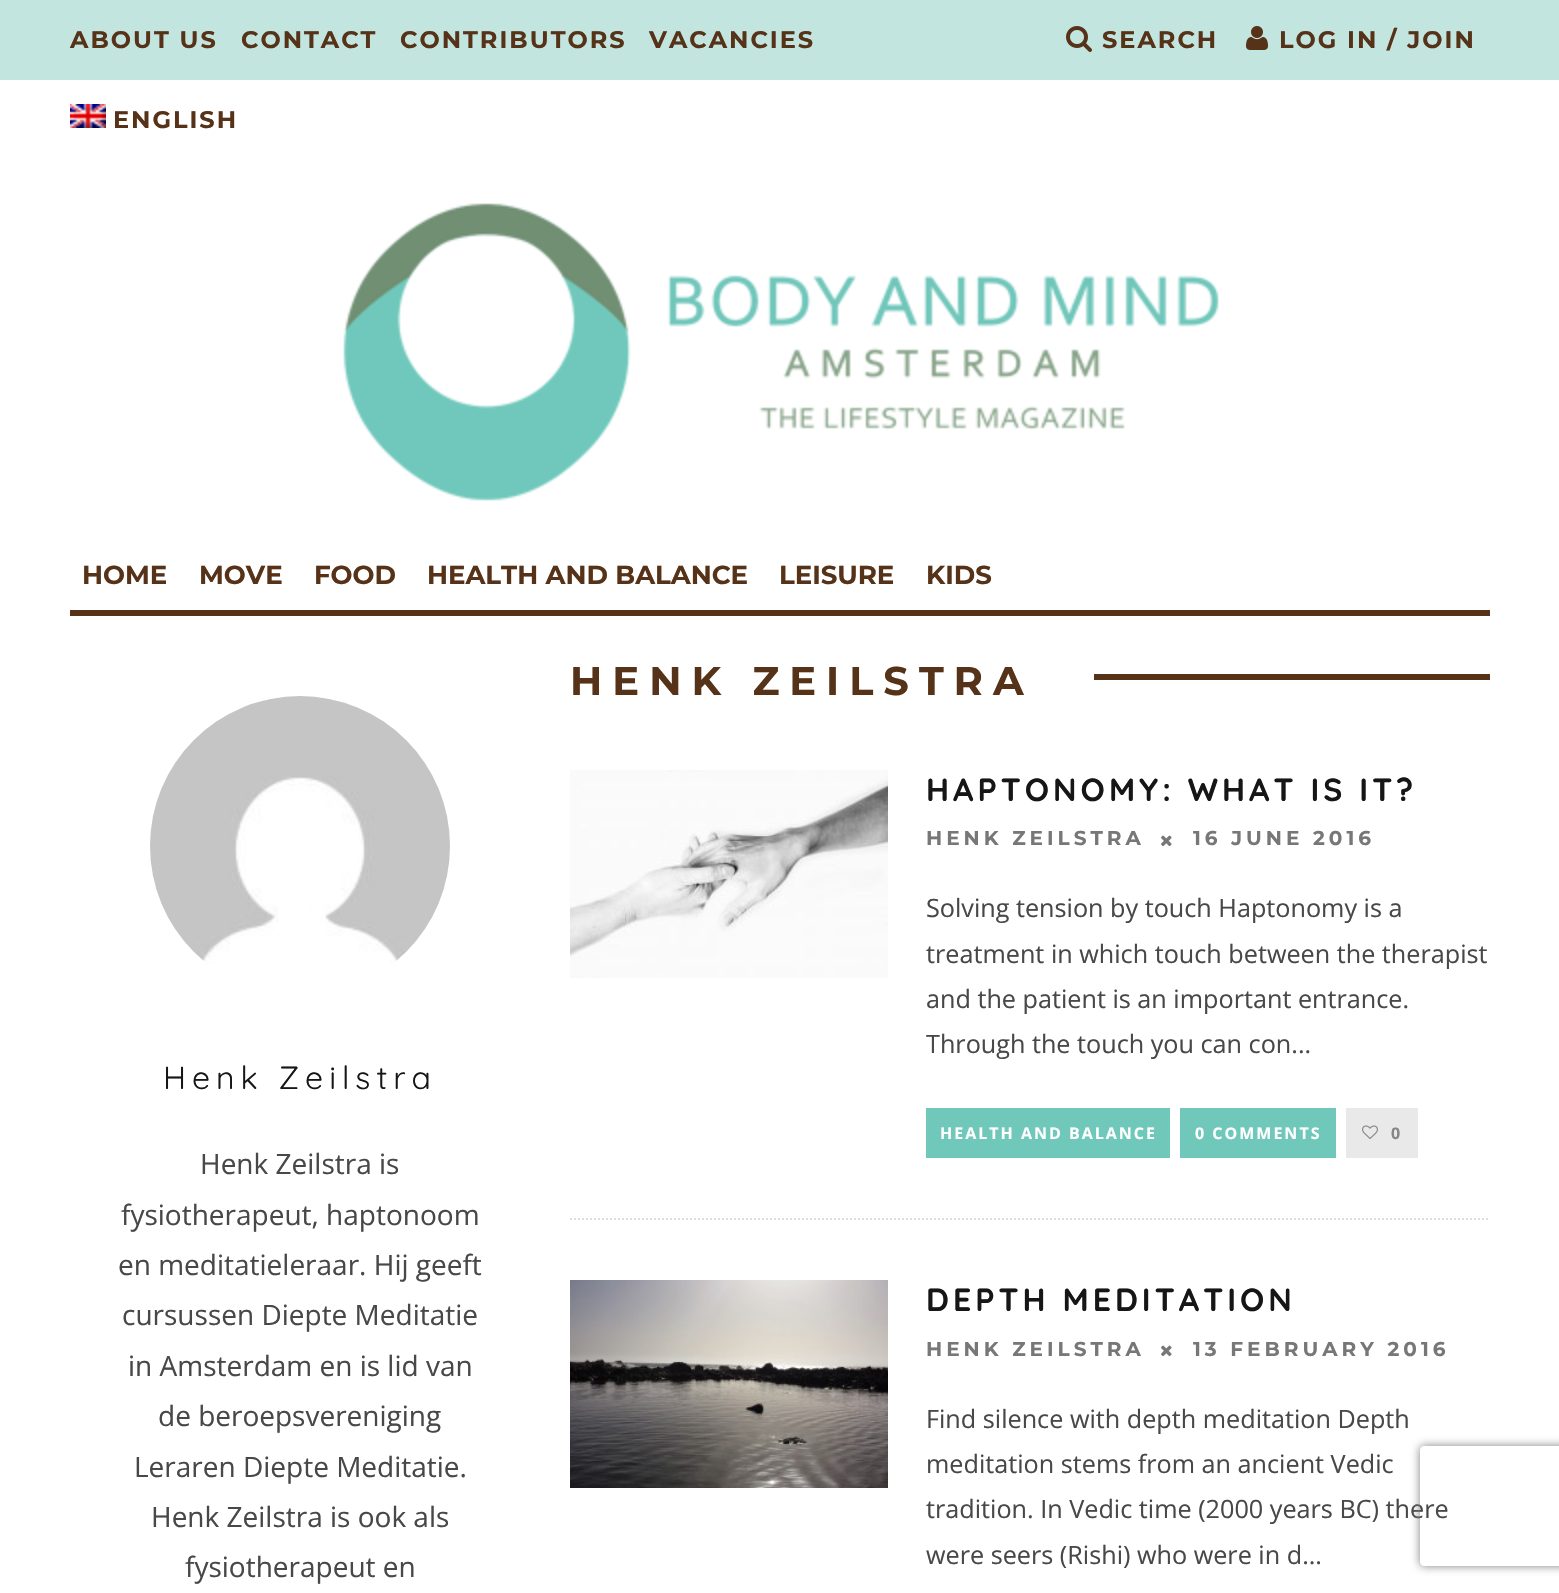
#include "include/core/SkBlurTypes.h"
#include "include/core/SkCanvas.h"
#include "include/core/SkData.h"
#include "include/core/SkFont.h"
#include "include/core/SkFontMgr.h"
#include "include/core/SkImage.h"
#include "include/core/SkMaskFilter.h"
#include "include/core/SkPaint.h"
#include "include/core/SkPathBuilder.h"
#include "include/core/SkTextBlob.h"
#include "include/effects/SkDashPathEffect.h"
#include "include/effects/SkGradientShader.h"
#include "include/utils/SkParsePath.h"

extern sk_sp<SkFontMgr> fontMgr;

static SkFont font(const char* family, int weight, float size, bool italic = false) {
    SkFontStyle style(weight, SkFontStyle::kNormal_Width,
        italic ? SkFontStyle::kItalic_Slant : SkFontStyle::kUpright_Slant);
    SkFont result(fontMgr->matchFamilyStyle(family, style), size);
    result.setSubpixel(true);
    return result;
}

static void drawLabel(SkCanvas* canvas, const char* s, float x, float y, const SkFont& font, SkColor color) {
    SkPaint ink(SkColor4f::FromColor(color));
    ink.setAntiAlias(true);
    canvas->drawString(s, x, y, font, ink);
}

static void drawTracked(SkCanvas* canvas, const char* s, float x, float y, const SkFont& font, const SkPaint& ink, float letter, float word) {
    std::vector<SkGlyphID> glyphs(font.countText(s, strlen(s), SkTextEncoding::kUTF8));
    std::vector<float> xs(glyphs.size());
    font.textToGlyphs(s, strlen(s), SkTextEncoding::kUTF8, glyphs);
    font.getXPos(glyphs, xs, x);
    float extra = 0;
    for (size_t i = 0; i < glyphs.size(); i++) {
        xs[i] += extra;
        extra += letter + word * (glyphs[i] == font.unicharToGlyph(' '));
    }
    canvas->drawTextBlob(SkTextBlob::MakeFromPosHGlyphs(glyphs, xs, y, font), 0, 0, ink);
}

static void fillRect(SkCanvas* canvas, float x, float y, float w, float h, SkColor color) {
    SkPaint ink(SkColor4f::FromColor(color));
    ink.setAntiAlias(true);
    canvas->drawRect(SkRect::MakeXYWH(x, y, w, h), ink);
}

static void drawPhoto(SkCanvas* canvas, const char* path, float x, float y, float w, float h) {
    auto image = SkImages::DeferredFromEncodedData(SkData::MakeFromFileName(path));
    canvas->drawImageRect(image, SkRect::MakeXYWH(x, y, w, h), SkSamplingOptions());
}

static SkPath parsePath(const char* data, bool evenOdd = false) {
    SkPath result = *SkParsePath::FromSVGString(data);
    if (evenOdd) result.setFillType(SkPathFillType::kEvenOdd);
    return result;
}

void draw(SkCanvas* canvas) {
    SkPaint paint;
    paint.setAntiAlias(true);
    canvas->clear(0xFFFFFFFF);
    fillRect(canvas, 0, 0, 1559, 80, 0xFFC3E5E0);
    SkFont font1 = font("Montserrat", 700, 24);
    paint.setColor(0xFF563218);
    drawTracked(canvas, "ABOUT US", 70, 48, font1, paint, 2, 0);
    drawTracked(canvas, "CONTACT", 241, 48, font1, paint, 2, 0);
    drawTracked(canvas, "CONTRIBUTORS", 400, 48, font1, paint, 2, 0);
    drawTracked(canvas, "VACANCIES", 649, 48, font1, paint, 2, 0);
    drawPhoto(canvas, "assets/img1.png", 70, 104, 36, 24);
    drawTracked(canvas, "ENGLISH", 113, 128, font1, paint, 2, 0);
    drawPhoto(canvas, "assets/img2.png", 1066, 26, 26, 26);
    drawTracked(canvas, "SEARCH", 1102, 48, font1, paint, 2, 0);
    drawPhoto(canvas, "assets/img3.png", 1246, 26, 22, 24);
    drawTracked(canvas, "LOG IN / JOIN", 1279, 48, font1, paint, 2, 0);
    drawPhoto(canvas, "assets/img4.png", 343, 203, 876, 298);
    fillRect(canvas, 70, 610, 1420, 6, 0xFF563218);
    SkFont font2 = font("Montserrat", 700, 26);
    drawLabel(canvas, "HOME", 82, 584, font2, 0xFF563218);
    drawLabel(canvas, "MOVE", 199, 584, font2, 0xFF563218);
    drawLabel(canvas, "FOOD", 314, 584, font2, 0xFF563218);
    drawLabel(canvas, "HEALTH AND BALANCE", 427, 584, font2, 0xFF563218);
    drawLabel(canvas, "LEISURE", 779, 584, font2, 0xFF563218);
    drawLabel(canvas, "KIDS", 926, 584, font2, 0xFF563218);
    drawPhoto(canvas, "assets/img5.png", 150, 696, 300, 268);
    SkFont font3 = font("Quicksand", 400, 32);
    paint.setColor(0xFF161616);
    drawTracked(canvas, "Henk Zeilstra", 163, 1089, font3, paint, 6, 0);
    SkFont font4 = font("Open Sans", 400, 28);
    drawLabel(canvas, "Henk Zeilstra is", 200, 1174, font4, 0xFF484848);
    drawLabel(canvas, "fysiotherapeut, haptonoom", 121, 1225, font4, 0xFF484848);
    drawLabel(canvas, "en meditatieleraar. Hij geeft", 118, 1275, font4, 0xFF484848);
    drawLabel(canvas, "cursussen Diepte Meditatie", 122, 1325, font4, 0xFF484848);
    drawLabel(canvas, "in Amsterdam en is lid van", 128, 1376, font4, 0xFF484848);
    drawLabel(canvas, "de beroepsvereniging", 158, 1426, font4, 0xFF484848);
    drawLabel(canvas, "Leraren Diepte Meditatie.", 134, 1477, font4, 0xFF484848);
    drawLabel(canvas, "Henk Zeilstra is ook als", 151, 1527, font4, 0xFF484848);
    drawLabel(canvas, "fysiotherapeut en", 185, 1577, font4, 0xFF484848);
    SkFont font5 = font("Montserrat", 700, 40);
    paint.setColor(0xFF563218);
    drawTracked(canvas, "HENK ZEILSTRA", 570, 695, font5, paint, 10, 0);
    fillRect(canvas, 1094, 674, 396, 6, 0xFF563218);
    paint.setStroke(true);
    paint.setStrokeWidth(2);
    paint.setColor(0xFFDDDDDD);
    paint.setPathEffect(SkDashPathEffect::Make({{2, 2}}, 0));
    canvas->drawPath(parsePath("M570 1219H1490"), paint);
    paint.setPathEffect(nullptr);
    drawPhoto(canvas, "assets/img6.png", 570, 770, 318, 208);
    SkFont font6 = font("Quicksand", 700, 32);
    paint.setStroke(false);
    paint.setColor(0xFF161616);
    drawTracked(canvas, "HAPTONOMY: WHAT IS IT?", 926, 801, font6, paint, 4, 0);
    SkFont font7 = font("Montserrat", 700, 20);
    paint.setColor(0xFF777777);
    drawTracked(canvas, "HENK ZEILSTRA", 926, 845, font7, paint, 4, 0);
    drawPhoto(canvas, "assets/img7.png", 1161, 835, 11, 12);
    drawTracked(canvas, "16 JUNE 2016", 1193, 845, font7, paint, 4, 0);
    SkFont font8 = font("Open Sans", 400, 25.2f);
    drawLabel(canvas, "Solving tension by touch Haptonomy is a", 926, 917, font8, 0xFF484848);
    drawLabel(canvas, "treatment in which touch between the therapist", 926, 963, font8, 0xFF484848);
    drawLabel(canvas, "and the patient is an important entrance.", 926, 1008, font8, 0xFF484848);
    drawLabel(canvas, "Through the touch you can con...", 926, 1053, font8, 0xFF484848);
    fillRect(canvas, 926, 1108, 244, 50, 0xFF70C8BA);
    SkFont font9 = font("Open Sans", 700, 16);
    paint.setColor(0xFFFFFFFF);
    drawTracked(canvas, "HEALTH AND BALANCE", 940, 1139, font9, paint, 2, 0);
    fillRect(canvas, 1180, 1108, 156, 50, 0xFF70C8BA);
    drawTracked(canvas, "0 COMMENTS", 1195, 1139, font9, paint, 2, 0);
    fillRect(canvas, 1346, 1108, 72, 50, 0xFFE9E9E9);
    drawPhoto(canvas, "assets/img8.png", 1362, 1125, 16, 14);
    paint.setColor(0xFF868686);
    drawTracked(canvas, "0", 1391, 1139, font9, paint, 4, 0);
    drawPhoto(canvas, "assets/img9.png", 570, 1280, 318, 208);
    paint.setColor(0xFF161616);
    drawTracked(canvas, "DEPTH MEDITATION", 926, 1311, font6, paint, 4, 0);
    paint.setColor(0xFF777777);
    drawTracked(canvas, "HENK ZEILSTRA", 926, 1356, font7, paint, 4, 0);
    drawPhoto(canvas, "assets/img7.png", 1161, 1345, 11, 12);
    drawTracked(canvas, "13 FEBRUARY 2016", 1193, 1356, font7, paint, 4, 0);
    drawLabel(canvas, "Find silence with depth meditation Depth", 926, 1428, font8, 0xFF484848);
    drawLabel(canvas, "meditation stems from an ancient Vedic", 926, 1473, font8, 0xFF484848);
    drawLabel(canvas, "tradition. In Vedic time (2000 years BC) there", 926, 1518, font8, 0xFF484848);
    drawLabel(canvas, "were seers (Rishi) who were in d...", 926, 1564, font8, 0xFF484848);
    canvas->save();
    canvas->clipPath(parsePath("M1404 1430H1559V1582H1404ZM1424 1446H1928C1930 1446 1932 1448 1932 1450V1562C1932 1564 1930 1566 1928 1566H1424C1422 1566 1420 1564 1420 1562V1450C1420 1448 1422 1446 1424 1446Z", true), true);
    paint.setColor(0xFF808080);
    paint.setMaskFilter(SkMaskFilter::MakeBlur(kNormal_SkBlurStyle, 5));
    canvas->drawRoundRect(SkRect::MakeXYWH(1420, 1446, 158, 120), 4, 4, paint);
    paint.setMaskFilter(nullptr);
    canvas->restore();
}
